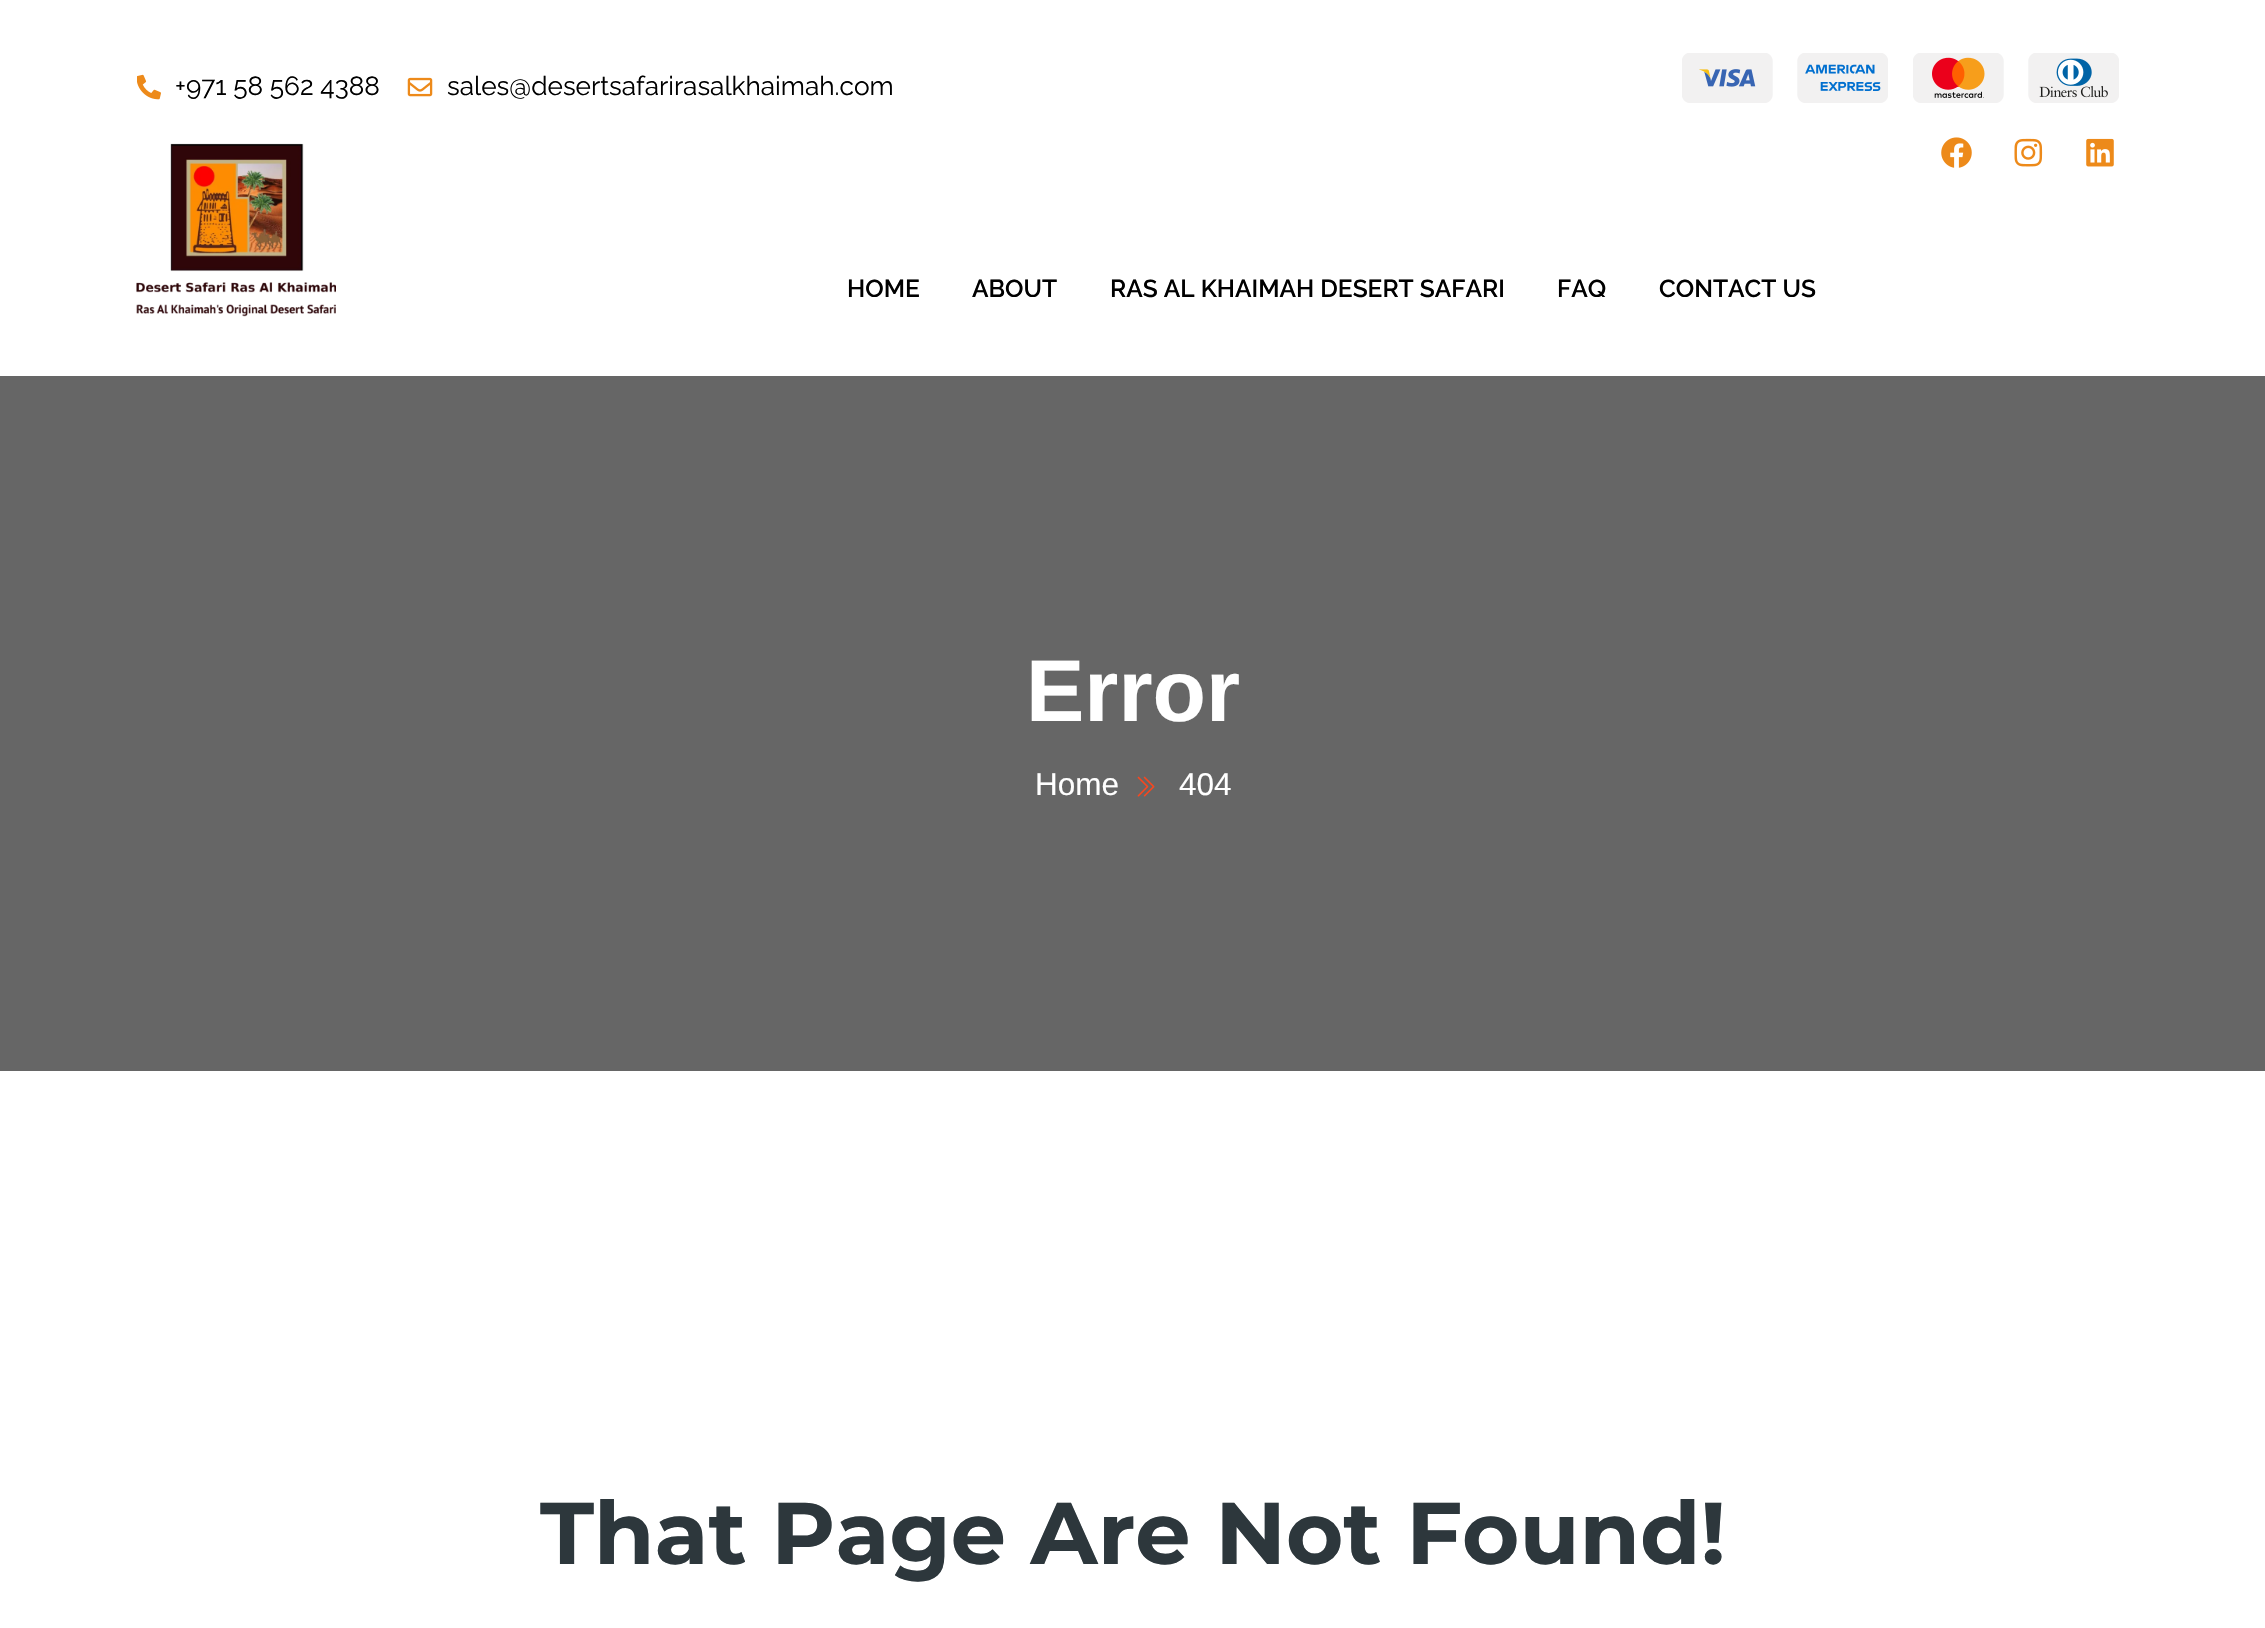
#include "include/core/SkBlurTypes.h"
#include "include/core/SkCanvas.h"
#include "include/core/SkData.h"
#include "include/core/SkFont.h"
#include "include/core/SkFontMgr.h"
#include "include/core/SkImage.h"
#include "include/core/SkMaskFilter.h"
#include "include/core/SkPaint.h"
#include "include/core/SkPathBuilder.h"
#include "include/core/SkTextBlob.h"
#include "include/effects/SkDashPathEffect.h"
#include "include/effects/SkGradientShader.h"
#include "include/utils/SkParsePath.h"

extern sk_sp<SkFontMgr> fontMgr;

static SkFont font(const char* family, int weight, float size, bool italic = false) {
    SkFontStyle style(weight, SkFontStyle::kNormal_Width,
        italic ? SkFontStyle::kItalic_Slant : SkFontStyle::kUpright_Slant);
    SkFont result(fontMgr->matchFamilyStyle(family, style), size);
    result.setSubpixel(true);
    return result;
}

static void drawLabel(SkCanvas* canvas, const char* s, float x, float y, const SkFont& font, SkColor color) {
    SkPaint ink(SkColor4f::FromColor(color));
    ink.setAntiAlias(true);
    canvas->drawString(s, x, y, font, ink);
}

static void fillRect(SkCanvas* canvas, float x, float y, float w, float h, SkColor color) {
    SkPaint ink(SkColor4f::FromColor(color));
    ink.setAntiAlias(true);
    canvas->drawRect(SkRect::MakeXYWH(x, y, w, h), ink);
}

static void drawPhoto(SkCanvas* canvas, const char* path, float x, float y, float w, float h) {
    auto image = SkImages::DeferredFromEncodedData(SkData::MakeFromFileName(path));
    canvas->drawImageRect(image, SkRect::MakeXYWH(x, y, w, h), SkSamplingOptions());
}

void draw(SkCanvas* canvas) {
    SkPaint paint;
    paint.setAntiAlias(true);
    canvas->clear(0xFFFFFFFF);
    drawPhoto(canvas, "assets/img1.png", 137, 74, 24, 26);
    SkFont font1 = font("Raleway", 400, 26.25f);
    drawLabel(canvas, "+971 58 562 4388", 175, 95, font1, 0xFF000000);
    drawPhoto(canvas, "assets/img2.png", 407, 77, 26, 20);
    drawLabel(canvas, "sales@desertsafarirasalkhaimah.com", 447, 95, font1, 0xFF000000);
    drawPhoto(canvas, "assets/img3.png", 1682, 53, 91, 50);
    drawPhoto(canvas, "assets/img4.png", 1797, 53, 91, 50);
    drawPhoto(canvas, "assets/img5.png", 1913, 53, 91, 50);
    drawPhoto(canvas, "assets/img6.png", 2028, 53, 91, 50);
    drawPhoto(canvas, "assets/img7.png", 136, 143, 200, 174);
    drawPhoto(canvas, "assets/img8.png", 1941, 137, 31, 31);
    drawPhoto(canvas, "assets/img9.png", 2014, 138, 29, 29);
    drawPhoto(canvas, "assets/img10.png", 2086, 138, 28, 29);
    SkFont font2 = font("Raleway", 600, 24.5f);
    drawLabel(canvas, "HOME", 847, 297, font2, 0xFF000000);
    drawLabel(canvas, "ABOUT", 972, 297, font2, 0xFF000000);
    drawLabel(canvas, "RAS AL KHAIMAH DESERT SAFARI", 1110, 297, font2, 0xFF000000);
    drawLabel(canvas, "FAQ", 1557, 297, font2, 0xFF000000);
    drawLabel(canvas, "CONTACT US", 1659, 297, font2, 0xFF000000);
    fillRect(canvas, 0, 376, 2265, 695, 0xFF666666);
    SkFont font3 = font("Liberation Sans", 700, 87.5f);
    drawLabel(canvas, "Error", 1026, 721, font3, 0xFFFFFFFF);
    SkFont font4 = font("Liberation Sans", 400, 31.5f);
    drawLabel(canvas, "Home", 1035, 795, font4, 0xFFFFFFFF);
    drawPhoto(canvas, "assets/img11.png", 1137, 776, 18, 21);
    drawLabel(canvas, "404", 1179, 795, font4, 0xFFFFFFFF);
    SkFont font5 = font("Montserrat", 700, 87.5f);
    drawLabel(canvas, "That Page Are Not Found!", 540, 1564, font5, 0xFF2D373C);
}
